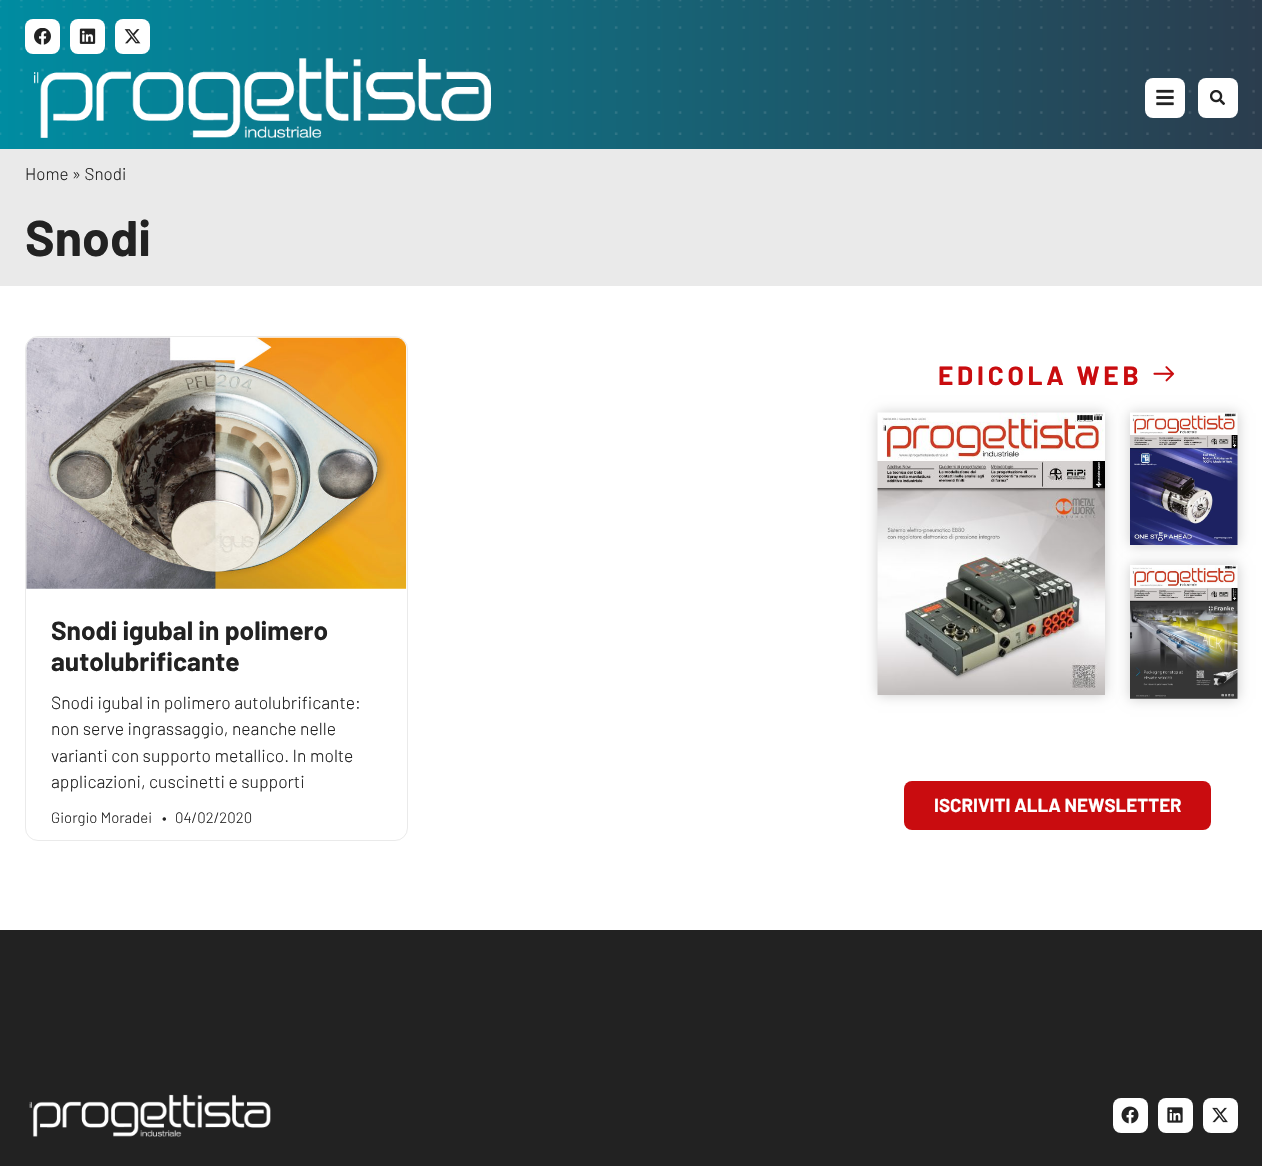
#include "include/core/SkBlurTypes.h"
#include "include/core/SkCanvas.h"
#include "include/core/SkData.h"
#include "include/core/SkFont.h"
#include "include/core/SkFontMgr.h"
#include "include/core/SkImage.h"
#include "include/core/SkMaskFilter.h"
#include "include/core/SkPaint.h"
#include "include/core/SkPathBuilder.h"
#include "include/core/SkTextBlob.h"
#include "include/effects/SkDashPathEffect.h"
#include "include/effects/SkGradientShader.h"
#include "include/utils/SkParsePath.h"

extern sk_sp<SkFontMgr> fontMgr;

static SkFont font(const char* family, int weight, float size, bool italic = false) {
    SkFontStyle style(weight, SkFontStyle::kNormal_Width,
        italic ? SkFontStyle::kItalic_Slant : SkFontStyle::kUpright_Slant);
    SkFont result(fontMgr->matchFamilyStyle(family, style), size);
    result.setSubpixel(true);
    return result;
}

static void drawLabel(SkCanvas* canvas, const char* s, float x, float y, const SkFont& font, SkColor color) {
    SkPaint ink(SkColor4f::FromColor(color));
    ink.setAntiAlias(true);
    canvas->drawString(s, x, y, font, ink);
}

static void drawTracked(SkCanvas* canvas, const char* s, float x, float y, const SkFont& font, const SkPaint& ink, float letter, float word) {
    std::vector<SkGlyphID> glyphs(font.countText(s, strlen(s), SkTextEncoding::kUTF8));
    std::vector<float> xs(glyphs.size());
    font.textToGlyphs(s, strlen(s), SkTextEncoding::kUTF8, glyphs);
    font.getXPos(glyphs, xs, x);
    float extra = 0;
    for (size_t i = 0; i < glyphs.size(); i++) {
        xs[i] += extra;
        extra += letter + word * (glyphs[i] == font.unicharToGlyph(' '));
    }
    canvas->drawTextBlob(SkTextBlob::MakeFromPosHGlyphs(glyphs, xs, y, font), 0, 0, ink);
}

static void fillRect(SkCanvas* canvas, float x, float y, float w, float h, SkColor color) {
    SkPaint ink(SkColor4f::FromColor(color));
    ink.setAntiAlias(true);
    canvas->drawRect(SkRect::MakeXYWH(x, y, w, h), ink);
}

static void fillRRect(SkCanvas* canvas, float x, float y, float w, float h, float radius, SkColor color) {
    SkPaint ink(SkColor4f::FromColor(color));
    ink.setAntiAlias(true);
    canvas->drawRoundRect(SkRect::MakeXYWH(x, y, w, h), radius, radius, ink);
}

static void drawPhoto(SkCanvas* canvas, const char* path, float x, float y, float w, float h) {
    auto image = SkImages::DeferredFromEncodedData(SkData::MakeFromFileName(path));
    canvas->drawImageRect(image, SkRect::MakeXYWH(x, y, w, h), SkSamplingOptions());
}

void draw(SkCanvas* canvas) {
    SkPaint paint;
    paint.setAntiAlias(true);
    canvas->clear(0xFFFFFFFF);
    {
        const SkColor colors[] = {0xFF008CA1, 0xFF2B3D4E};
        const float stops[] = {0, 1};
        const SkPoint ends[] = {{0, 33}, {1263, 33}};
        paint.setShader(SkGradientShader::MakeLinear(ends, colors, stops, 2, SkTileMode::kClamp));
        paint.setAlpha(255);
    }
    canvas->drawRect(SkRect::MakeXYWH(0, 0, 1262, 6), paint);
    drawPhoto(canvas, "assets/img1.png", 0, 0, 1255, 2);
    {
        const SkColor colors[] = {0xFF008CA1, 0xFF2B3D4E};
        const float stops[] = {0, 1};
        const SkPoint ends[] = {{0, 78}, {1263, 77}};
        paint.setShader(SkGradientShader::MakeLinear(ends, colors, stops, 2, SkTileMode::kClamp));
        paint.setAlpha(255);
    }
    canvas->drawRect(SkRect::MakeXYWH(0, 6, 1262, 143), paint);
    drawPhoto(canvas, "assets/img2.png", 0, 6, 1255, 129);
    fillRRect(canvas, 25, 19, 35, 35, 8, 0xFFFFFFFF);
    drawPhoto(canvas, "assets/img3.png", 34, 28, 17, 17);
    fillRRect(canvas, 70, 19, 35, 35, 8, 0xFFFFFFFF);
    drawPhoto(canvas, "assets/img4.png", 79, 28, 17, 16);
    fillRRect(canvas, 115, 19, 35, 35, 8, 0xFFFFFFFF);
    drawPhoto(canvas, "assets/img5.png", 124, 29, 17, 15);
    drawPhoto(canvas, "assets/img6.png", 34, 58, 457, 80);
    fillRRect(canvas, 1145, 78, 40, 40, 8, 0xFFFFFFFF);
    drawPhoto(canvas, "assets/img7.png", 1156, 89, 18, 17);
    fillRRect(canvas, 1198, 78, 40, 40, 8, 0xFFFFFFFF);
    drawPhoto(canvas, "assets/img8.png", 1210, 90, 15, 15);
    fillRect(canvas, 0, 149, 1262, 137, 0xFFEAEAEA);
    SkFont font1 = font("Barlow", 300, 17);
    drawLabel(canvas, "Home » Snodi", 25, 180, font1, 0xFF222222);
    SkFont font2 = font("Barlow", 700, 50);
    drawLabel(canvas, "Snodi", 25, 256, font2, 0xFF222222);
    paint.setStroke(true);
    paint.setStrokeWidth(1);
    paint.setShader(nullptr);
    paint.setColor(0xFFEAEAEA);
    canvas->drawRoundRect(SkRect::MakeXYWH(25.5f, 336.5f, 382, 504), 12.5f, 12.5f, paint);
    drawPhoto(canvas, "assets/img9.png", 26, 337, 381, 252);
    SkFont font3 = font("Barlow", 700, 26.25f);
    drawLabel(canvas, "Snodi igubal in polimero", 51, 640, font3, 0xFF222222);
    drawLabel(canvas, "autolubrificante", 51, 671, font3, 0xFF222222);
    SkFont font4 = font("Barlow", 300, 17.5f);
    drawLabel(canvas, "Snodi igubal in polimero autolubrificante:", 51, 709, font4, 0xFF222222);
    drawLabel(canvas, "non serve ingrassaggio, neanche nelle", 51, 735, font4, 0xFF222222);
    drawLabel(canvas, "varianti con supporto metallico. In molte", 51, 762, font4, 0xFF222222);
    drawLabel(canvas, "applicazioni, cuscinetti e supporti", 51, 788, font4, 0xFF222222);
    SkFont font5 = font("Barlow", 300, 15);
    drawLabel(canvas, "Giorgio Moradei", 51, 823, font5, 0xFF222222);
    drawLabel(canvas, "•", 162, 823, font5, 0xFF222222);
    drawLabel(canvas, "04/02/2020", 175, 823, font5, 0xFF222222);
    paint.setStroke(false);
    paint.setColor(0xFFC90C0F);
    drawTracked(canvas, "EDICOLA WEB", 938, 385, font3, paint, 3.75f, 0);
    drawPhoto(canvas, "assets/img10.png", 1153, 366, 22, 16);
    paint.setColor(0x33000000);
    paint.setMaskFilter(SkMaskFilter::MakeBlur(kNormal_SkBlurStyle, 6));
    canvas->drawRect(SkRect::MakeXYWH(878, 413, 227, 282), paint);
    paint.setMaskFilter(nullptr);
    drawPhoto(canvas, "assets/img11.png", 877, 412, 228, 283);
    paint.setMaskFilter(SkMaskFilter::MakeBlur(kNormal_SkBlurStyle, 6));
    canvas->drawRect(SkRect::MakeXYWH(1130, 413, 108, 132), paint);
    paint.setMaskFilter(nullptr);
    drawPhoto(canvas, "assets/img12.png", 1130, 412, 108, 133);
    paint.setMaskFilter(SkMaskFilter::MakeBlur(kNormal_SkBlurStyle, 6));
    canvas->drawRect(SkRect::MakeXYWH(1130, 565, 108, 134), paint);
    paint.setMaskFilter(nullptr);
    drawPhoto(canvas, "assets/img13.png", 1130, 565, 108, 134);
    fillRRect(canvas, 904, 781, 307, 49, 8, 0xFFC90C0F);
    SkFont font6 = font("Barlow", 700, 18.75f);
    drawLabel(canvas, "ISCRIVITI ALLA NEWSLETTER", 934, 812, font6, 0xFFFFFFFF);
    fillRect(canvas, 0, 930, 1262, 236, 0xFF222222);
    drawPhoto(canvas, "assets/img14.png", 29, 1094, 242, 43);
    fillRRect(canvas, 1113, 1098, 35, 35, 8, 0xFFFFFFFF);
    drawPhoto(canvas, "assets/img15.png", 1121, 1106, 18, 18);
    fillRRect(canvas, 1158, 1098, 35, 35, 8, 0xFFFFFFFF);
    drawPhoto(canvas, "assets/img16.png", 1167, 1107, 16, 16);
    fillRRect(canvas, 1203, 1098, 35, 35, 8, 0xFFFFFFFF);
    drawPhoto(canvas, "assets/img17.png", 1212, 1107, 16, 16);
}
